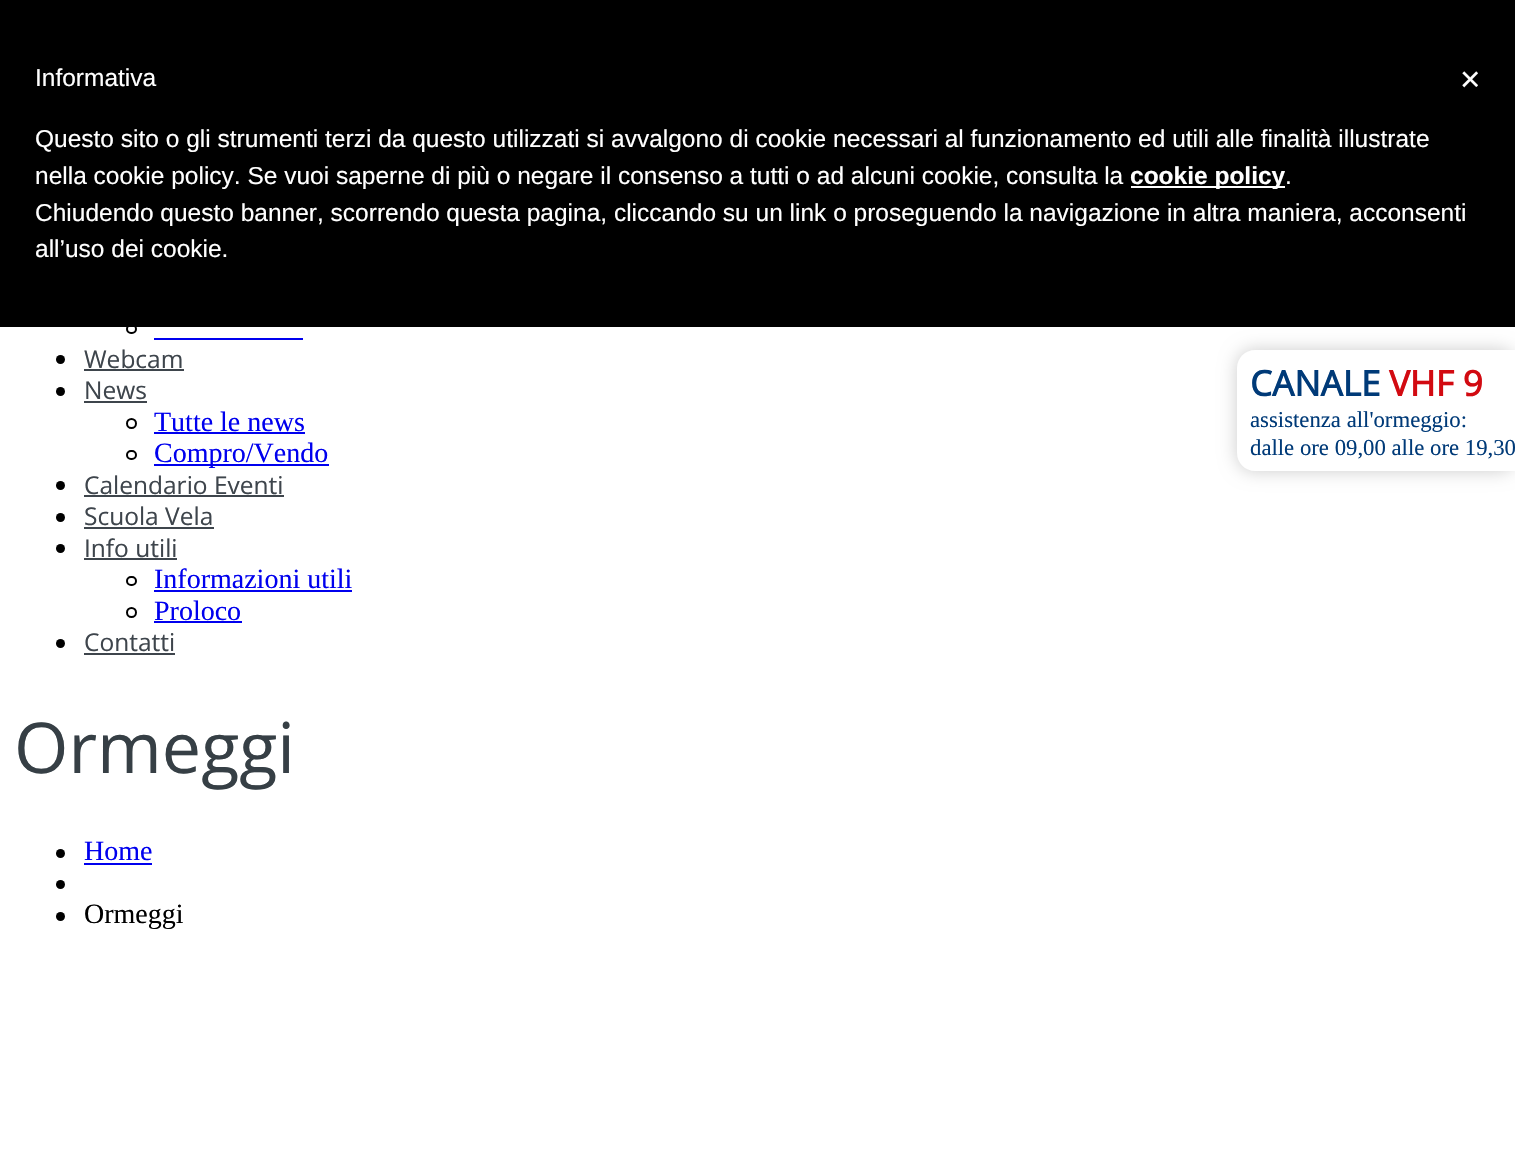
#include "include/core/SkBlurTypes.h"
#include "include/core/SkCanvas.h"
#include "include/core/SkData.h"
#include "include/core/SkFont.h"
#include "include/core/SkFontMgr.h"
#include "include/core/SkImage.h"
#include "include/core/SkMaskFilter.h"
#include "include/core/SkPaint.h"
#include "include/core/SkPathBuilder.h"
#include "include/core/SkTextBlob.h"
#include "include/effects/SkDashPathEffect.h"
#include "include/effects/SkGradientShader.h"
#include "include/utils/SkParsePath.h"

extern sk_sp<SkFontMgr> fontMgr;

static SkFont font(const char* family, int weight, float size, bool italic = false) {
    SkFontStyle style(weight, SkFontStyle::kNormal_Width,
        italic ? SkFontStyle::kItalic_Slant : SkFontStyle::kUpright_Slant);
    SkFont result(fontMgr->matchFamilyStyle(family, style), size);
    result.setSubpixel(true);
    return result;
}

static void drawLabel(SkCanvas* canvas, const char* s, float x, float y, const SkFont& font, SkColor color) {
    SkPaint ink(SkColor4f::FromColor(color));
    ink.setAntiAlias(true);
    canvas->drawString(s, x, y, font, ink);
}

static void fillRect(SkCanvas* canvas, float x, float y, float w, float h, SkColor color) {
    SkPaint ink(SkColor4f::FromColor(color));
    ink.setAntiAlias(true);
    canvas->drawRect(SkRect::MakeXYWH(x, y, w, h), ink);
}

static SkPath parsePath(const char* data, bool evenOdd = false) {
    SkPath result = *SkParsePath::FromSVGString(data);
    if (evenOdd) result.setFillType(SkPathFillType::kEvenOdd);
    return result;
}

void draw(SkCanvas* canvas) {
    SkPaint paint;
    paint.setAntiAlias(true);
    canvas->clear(0xFFFFFFFF);
    paint.setStroke(true);
    paint.setStrokeWidth(2);
    paint.setColor(0xFF000000);
    canvas->drawRoundRect(SkRect::MakeXYWH(127, 325, 9, 8), 4, 4, paint);
    paint.setStroke(false);
    paint.setColor(0x33000000);
    paint.setMaskFilter(SkMaskFilter::MakeBlur(kNormal_SkBlurStyle, 9));
    canvas->drawRoundRect(SkRect::MakeXYWH(1237, 350, 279, 121), 18, 18, paint);
    paint.setMaskFilter(nullptr);
    fillRect(canvas, 0, 0, 1515, 327, 0xFF000000);
    SkFont font1 = font("Liberation Sans", 400, 24.5f);
    drawLabel(canvas, "Informativa", 35, 86, font1, 0xFFFFFFFF);
    drawLabel(canvas, "Questo sito o gli strumenti terzi da questo utilizzati si avvalgono di cookie necessari al funzionamento ed utili alle finalità illustrate", 35, 147, font1, 0xFFFFFFFF);
    drawLabel(canvas, "nella cookie policy. Se vuoi saperne di più o negare il consenso a tutti o ad alcuni cookie, consulta la", 35, 184, font1, 0xFFFFFFFF);
    fillRect(canvas, 1131, 186, 154, 2, 0xFFFFFFFF);
    SkFont font2 = font("Liberation Sans", 700, 24.5f);
    drawLabel(canvas, "cookie policy", 1130, 184, font2, 0xFFFFFFFF);
    drawLabel(canvas, ".", 1285, 184, font1, 0xFFFFFFFF);
    drawLabel(canvas, "Chiudendo questo banner, scorrendo questa pagina, cliccando su un link o proseguendo la navigazione in altra maniera, acconsenti", 35, 221, font1, 0xFFFFFFFF);
    drawLabel(canvas, "all’uso dei cookie.", 35, 257, font1, 0xFFFFFFFF);
    SkFont font3 = font("Liberation Sans", 400, 35);
    drawLabel(canvas, "×", 1460, 91, font3, 0xFFFFFFFF);
    fillRect(canvas, 154, 338, 149, 2, 0xFF0000EE);
    paint.setColor(0xFF000000);
    canvas->drawCircle(60.5f, 359.5f, 4.5f, paint);
    SkFont font4 = font("Open Sans", 400, 24.5f);
    drawLabel(canvas, "Webcam", 84, 368, font4, 0xFF3E454C);
    fillRect(canvas, 84, 369, 100, 2, 0xFF3E454C);
    canvas->drawCircle(60.5f, 391.5f, 4.5f, paint);
    drawLabel(canvas, "News", 84, 399, font4, 0xFF3E454C);
    fillRect(canvas, 84, 401, 63, 2, 0xFF3E454C);
    paint.setStroke(true);
    canvas->drawCircle(131.5f, 423.5f, 4.5f, paint);
    SkFont font5 = font("Liberation Serif", 400, 28);
    drawLabel(canvas, "Tutte le news", 154, 431, font5, 0xFF0000EE);
    fillRect(canvas, 154, 432, 151, 2, 0xFF0000EE);
    canvas->drawRoundRect(SkRect::MakeXYWH(127, 451, 9, 8), 4, 4, paint);
    fillRect(canvas, 154, 464, 175, 2, 0xFF0000EE);
    drawLabel(canvas, "Compro/Vendo", 154, 462, font5, 0xFF0000EE);
    paint.setStroke(false);
    canvas->drawCircle(60.5f, 485.5f, 4.5f, paint);
    drawLabel(canvas, "Calendario Eventi", 84, 494, font4, 0xFF3E454C);
    fillRect(canvas, 84, 495, 200, 2, 0xFF3E454C);
    canvas->drawCircle(60.5f, 517.5f, 4.5f, paint);
    drawLabel(canvas, "Scuola Vela", 84, 525, font4, 0xFF3E454C);
    fillRect(canvas, 84, 527, 130, 2, 0xFF3E454C);
    canvas->drawCircle(60.5f, 548.5f, 4.5f, paint);
    drawLabel(canvas, "Info utili", 84, 557, font4, 0xFF3E454C);
    fillRect(canvas, 84, 558, 93, 2, 0xFF3E454C);
    paint.setStroke(true);
    canvas->drawRoundRect(SkRect::MakeXYWH(127, 577, 9, 8), 4, 4, paint);
    drawLabel(canvas, "Informazioni utili", 154, 588, font5, 0xFF0000EE);
    fillRect(canvas, 154, 590, 198, 2, 0xFF0000EE);
    canvas->drawCircle(131.5f, 612.5f, 4.5f, paint);
    drawLabel(canvas, "Proloco", 154, 620, font5, 0xFF0000EE);
    fillRect(canvas, 154, 621, 88, 2, 0xFF0000EE);
    paint.setStroke(false);
    canvas->drawCircle(60.5f, 643.5f, 4.5f, paint);
    drawLabel(canvas, "Contatti", 84, 651, font4, 0xFF3E454C);
    fillRect(canvas, 84, 653, 91, 2, 0xFF3E454C);
    paint.setColor(0xFFFFFFFF);
    canvas->drawPath(parsePath("M1255 350H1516V471H1255C1245 471 1237 463 1237 453V368C1237 358 1245 350 1255 350Z"), paint);
    SkFont font6 = font("Open Sans", 700, 35);
    drawLabel(canvas, "CANALE", 1250, 396, font6, 0xFF003A78);
    drawLabel(canvas, "VHF 9", 1389, 396, font6, 0xFFD20A11);
    SkFont font7 = font("Liberation Serif", 400, 22.75f);
    drawLabel(canvas, "assistenza all'ormeggio:", 1250, 427, font7, 0xFF003A78);
    drawLabel(canvas, "dalle ore 09,00 alle ore 19,30", 1250, 455, font7, 0xFF003A78);
    SkFont font8 = font("Open Sans", 400, 70);
    drawLabel(canvas, "Ormeggi", 14, 773, font8, 0xFF363F45);
    paint.setColor(0xFF000000);
    canvas->drawCircle(60.5f, 853.5f, 4.5f, paint);
    drawLabel(canvas, "Home", 84, 860, font5, 0xFF0000EE);
    fillRect(canvas, 84, 863, 68, 2, 0xFF0000EE);
    canvas->drawCircle(60.5f, 884.5f, 4.5f, paint);
    canvas->drawCircle(60.5f, 916.5f, 4.5f, paint);
    drawLabel(canvas, "Ormeggi", 84, 923, font5, 0xFF000000);
}
